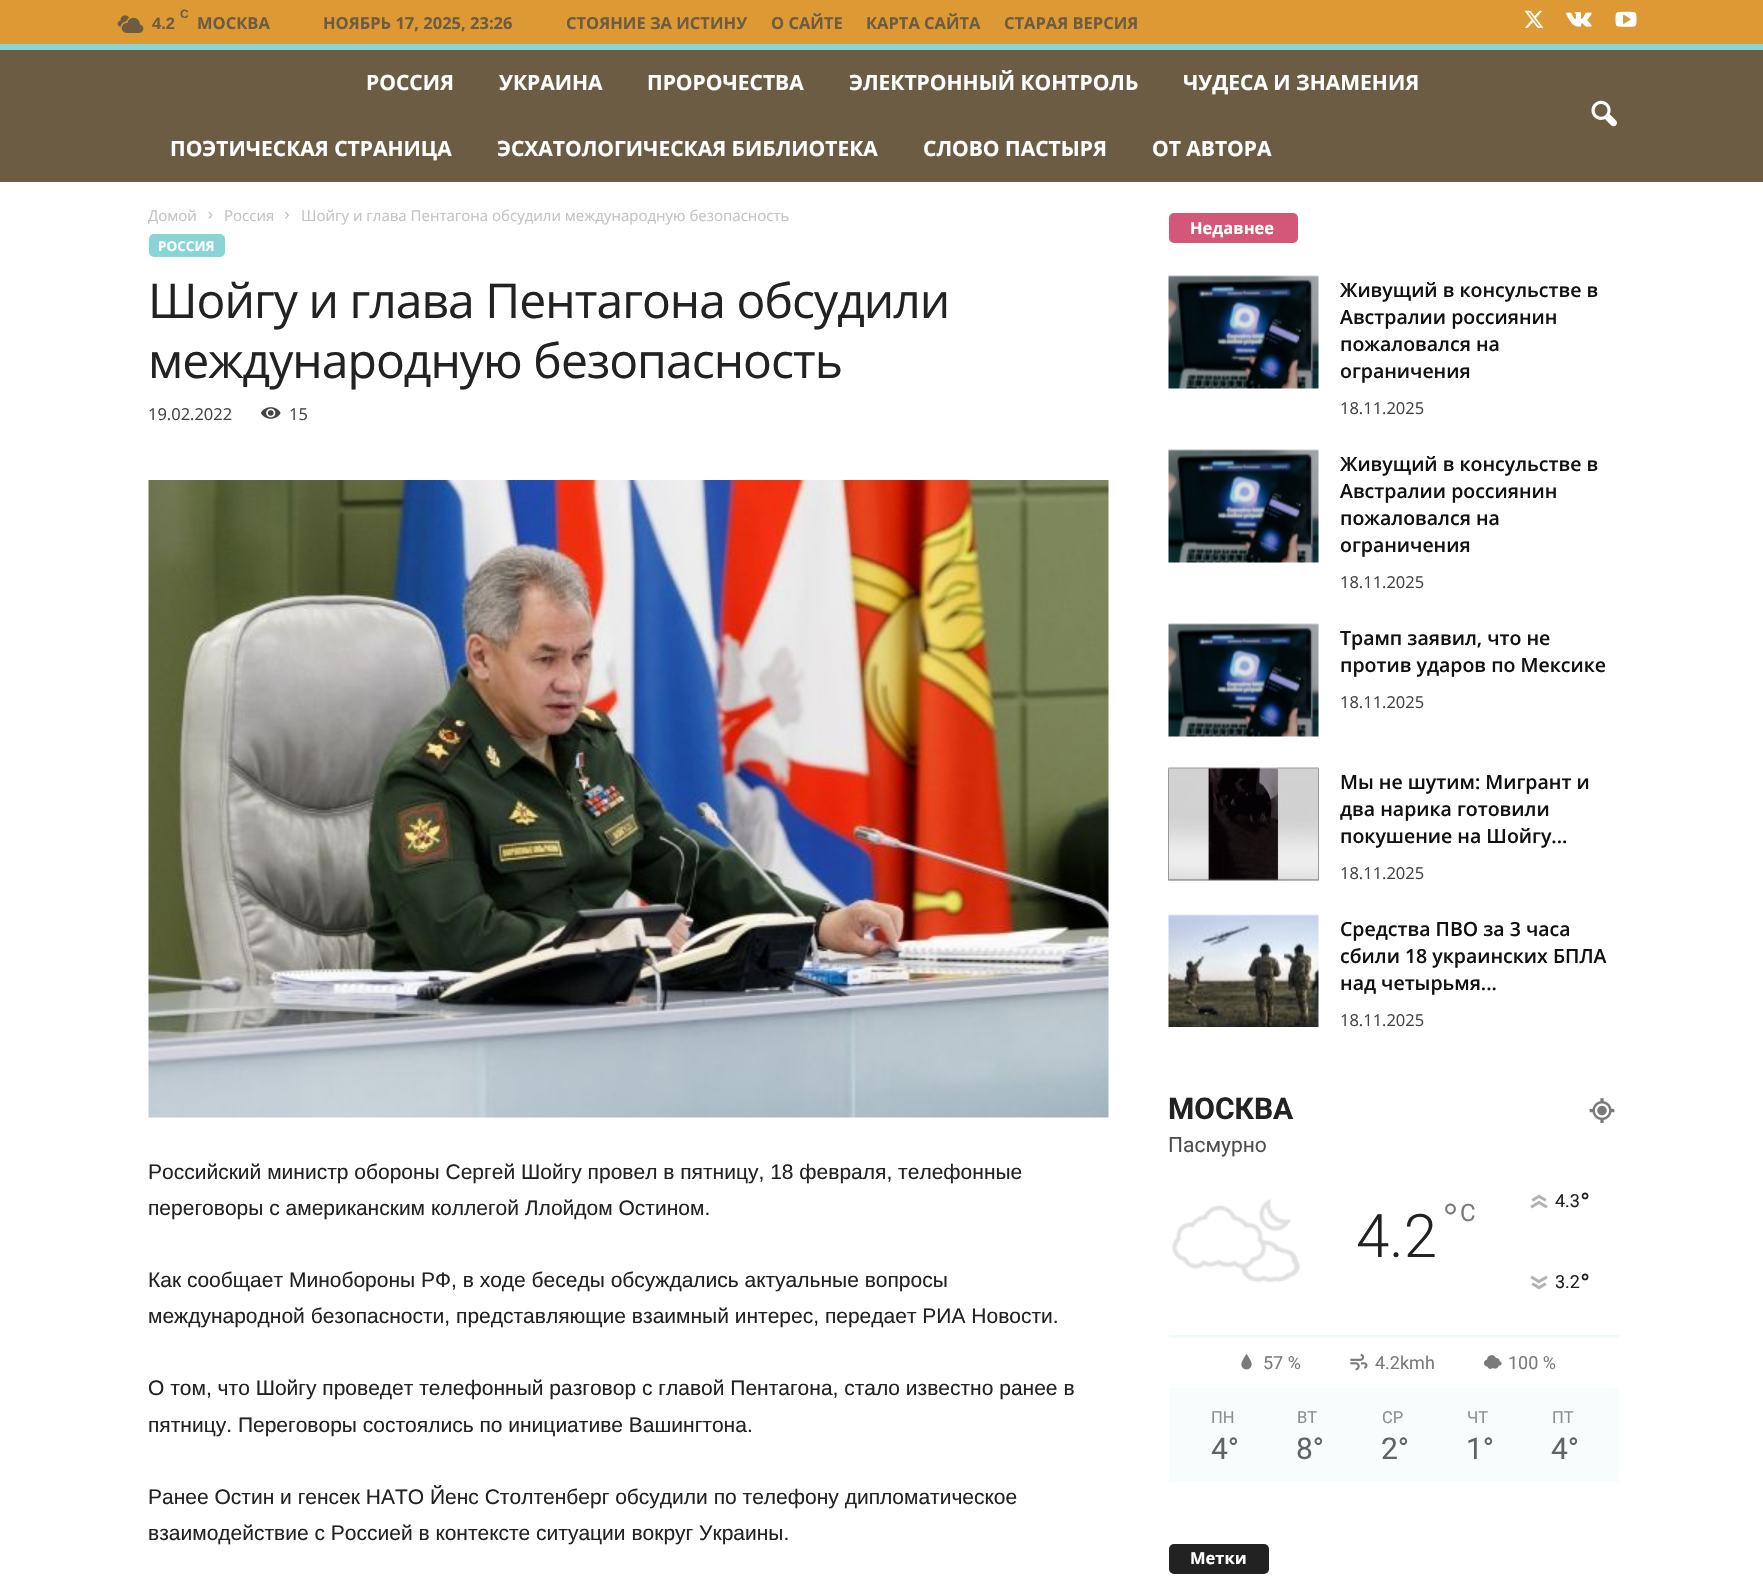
#include "include/core/SkBlurTypes.h"
#include "include/core/SkCanvas.h"
#include "include/core/SkData.h"
#include "include/core/SkFont.h"
#include "include/core/SkFontMgr.h"
#include "include/core/SkImage.h"
#include "include/core/SkMaskFilter.h"
#include "include/core/SkPaint.h"
#include "include/core/SkPathBuilder.h"
#include "include/core/SkTextBlob.h"
#include "include/effects/SkDashPathEffect.h"
#include "include/effects/SkGradientShader.h"
#include "include/utils/SkParsePath.h"

extern sk_sp<SkFontMgr> fontMgr;

static SkFont font(const char* family, int weight, float size, bool italic = false) {
    SkFontStyle style(weight, SkFontStyle::kNormal_Width,
        italic ? SkFontStyle::kItalic_Slant : SkFontStyle::kUpright_Slant);
    SkFont result(fontMgr->matchFamilyStyle(family, style), size);
    result.setSubpixel(true);
    return result;
}

static void drawLabel(SkCanvas* canvas, const char* s, float x, float y, const SkFont& font, SkColor color) {
    SkPaint ink(SkColor4f::FromColor(color));
    ink.setAntiAlias(true);
    canvas->drawString(s, x, y, font, ink);
}

static void drawTracked(SkCanvas* canvas, const char* s, float x, float y, const SkFont& font, const SkPaint& ink, float letter, float word) {
    std::vector<SkGlyphID> glyphs(font.countText(s, strlen(s), SkTextEncoding::kUTF8));
    std::vector<float> xs(glyphs.size());
    font.textToGlyphs(s, strlen(s), SkTextEncoding::kUTF8, glyphs);
    font.getXPos(glyphs, xs, x);
    float extra = 0;
    for (size_t i = 0; i < glyphs.size(); i++) {
        xs[i] += extra;
        extra += letter + word * (glyphs[i] == font.unicharToGlyph(' '));
    }
    canvas->drawTextBlob(SkTextBlob::MakeFromPosHGlyphs(glyphs, xs, y, font), 0, 0, ink);
}

static void fillRect(SkCanvas* canvas, float x, float y, float w, float h, SkColor color) {
    SkPaint ink(SkColor4f::FromColor(color));
    ink.setAntiAlias(true);
    canvas->drawRect(SkRect::MakeXYWH(x, y, w, h), ink);
}

static void fillRRect(SkCanvas* canvas, float x, float y, float w, float h, float radius, SkColor color) {
    SkPaint ink(SkColor4f::FromColor(color));
    ink.setAntiAlias(true);
    canvas->drawRoundRect(SkRect::MakeXYWH(x, y, w, h), radius, radius, ink);
}

static void drawPhoto(SkCanvas* canvas, const char* path, float x, float y, float w, float h) {
    auto image = SkImages::DeferredFromEncodedData(SkData::MakeFromFileName(path));
    canvas->drawImageRect(image, SkRect::MakeXYWH(x, y, w, h), SkSamplingOptions());
}

void draw(SkCanvas* canvas) {
    SkPaint paint;
    paint.setAntiAlias(true);
    canvas->clear(0xFFFFFFFF);
    fillRect(canvas, 0, 0, 1763, 44, 0xFFDD9933);
    drawPhoto(canvas, "assets/img1.png", 117, 15, 27, 18);
    SkFont font1 = font("Liberation Sans", 700, 12);
    drawLabel(canvas, "C", 180, 18, font1, 0xFF6B5C43);
    SkFont font2 = font("Liberation Sans", 700, 16.5f);
    drawLabel(canvas, "4.2", 152, 29, font2, 0xFF6B5C43);
    SkFont font3 = font("Open Sans", 700, 16.5f);
    drawLabel(canvas, "МОСКВА", 197, 29, font3, 0xFF6B5C43);
    drawLabel(canvas, "НОЯБРЬ 17, 2025, 23:26", 323, 29, font3, 0xFF6B5C43);
    drawLabel(canvas, "СТОЯНИЕ ЗА ИСТИНУ", 566, 29, font3, 0xFF6B5C43);
    drawLabel(canvas, "О САЙТЕ", 771, 29, font3, 0xFF6B5C43);
    drawLabel(canvas, "КАРТА САЙТА", 866, 29, font3, 0xFF6B5C43);
    drawLabel(canvas, "СТАРАЯ ВЕРСИЯ", 1004, 29, font3, 0xFF6B5C43);
    drawPhoto(canvas, "assets/img2.png", 1524, 10, 20, 18);
    drawPhoto(canvas, "assets/img3.png", 1566, 12, 26, 15);
    drawPhoto(canvas, "assets/img4.png", 1615, 11, 22, 16);
    fillRect(canvas, 0, 50, 1763, 132, 0xFF6B5C43);
    fillRect(canvas, 0, 44, 1763, 6, 0xFF89D4D7);
    SkFont font4 = font("Open Sans", 700, 21);
    drawLabel(canvas, "РОССИЯ", 366, 90, font4, 0xFFFFFFFF);
    drawLabel(canvas, "УКРАИНА", 499, 90, font4, 0xFFFFFFFF);
    drawLabel(canvas, "ПРОРОЧЕСТВА", 647, 90, font4, 0xFFFFFFFF);
    drawLabel(canvas, "ЭЛЕКТРОННЫЙ КОНТРОЛЬ", 849, 90, font4, 0xFFFFFFFF);
    drawLabel(canvas, "ЧУДЕСА И ЗНАМЕНИЯ", 1183, 90, font4, 0xFFFFFFFF);
    drawLabel(canvas, "ПОЭТИЧЕСКАЯ СТРАНИЦА", 170, 156, font4, 0xFFFFFFFF);
    drawLabel(canvas, "ЭСХАТОЛОГИЧЕСКАЯ БИБЛИОТЕКА", 497, 156, font4, 0xFFFFFFFF);
    drawLabel(canvas, "СЛОВО ПАСТЫРЯ", 923, 156, font4, 0xFFFFFFFF);
    drawLabel(canvas, "ОТ АВТОРА", 1152, 156, font4, 0xFFFFFFFF);
    drawPhoto(canvas, "assets/img5.png", 1591, 100, 26, 27);
    SkFont font5 = font("Open Sans", 400, 15);
    drawLabel(canvas, "Домой", 148, 221, font5, 0xFFC3C3C3);
    drawPhoto(canvas, "assets/img6.png", 208, 211, 5, 8);
    drawLabel(canvas, "Россия", 224, 221, font5, 0xFFC3C3C3);
    drawPhoto(canvas, "assets/img7.png", 285, 211, 4, 8);
    drawLabel(canvas, "Шойгу и глава Пентагона обсудили международную безопасность", 301, 221, font5, 0xFFC3C3C3);
    fillRRect(canvas, 149, 234, 76, 23, 5, 0xFF89D4D7);
    SkFont font6 = font("Open Sans", 700, 13.5f);
    drawLabel(canvas, "РОССИЯ", 158, 251, font6, 0xFFFFFFFF);
    SkFont font7 = font("Open Sans", 400, 48);
    paint.setColor(0xFF222222);
    drawTracked(canvas, "Шойгу и глава Пентагона обсудили", 148, 318, font7, paint, -0.95f, 0);
    drawTracked(canvas, "международную безопасность", 148, 378, font7, paint, -0.95f, 0);
    SkFont font8 = font("Open Sans", 400, 16.5f);
    drawLabel(canvas, "19.02.2022", 148, 420, font8, 0xFF444444);
    drawPhoto(canvas, "assets/img8.png", 261, 407, 20, 12);
    drawLabel(canvas, "15", 289, 420, font8, 0xFF444444);
    drawPhoto(canvas, "assets/img9.png", 148, 480, 961, 638);
    SkFont font9 = font("Liberation Sans", 400, 21);
    drawLabel(canvas, "Российский министр обороны Сергей Шойгу провел в пятницу, 18 февраля, телефонные", 148, 1179, font9, 0xFF222222);
    drawLabel(canvas, "переговоры с американским коллегой Ллойдом Остином.", 148, 1215, font9, 0xFF222222);
    drawLabel(canvas, "Как сообщает Минобороны РФ, в ходе беседы обсуждались актуальные вопросы", 148, 1287, font9, 0xFF222222);
    drawLabel(canvas, "международной безопасности, представляющие взаимный интерес, передает РИА Новости.", 148, 1323, font9, 0xFF222222);
    drawLabel(canvas, "О том, что Шойгу проведет телефонный разговор с главой Пентагона, стало известно ранее в", 148, 1395, font9, 0xFF222222);
    drawLabel(canvas, "пятницу. Переговоры состоялись по инициативе Вашингтона.", 148, 1432, font9, 0xFF222222);
    drawLabel(canvas, "Ранее Остин и генсек НАТО Йенс Столтенберг обсудили по телефону дипломатическое", 148, 1504, font9, 0xFF222222);
    drawLabel(canvas, "взаимодействие с Россией в контексте ситуации вокруг Украины.", 148, 1540, font9, 0xFF222222);
    fillRRect(canvas, 1169, 213, 129, 30, 5, 0xFFD25779);
    drawLabel(canvas, "Недавнее", 1190, 234, font3, 0xFFFFFFFF);
    drawPhoto(canvas, "assets/img10.png", 1168, 275, 151, 114);
    SkFont font10 = font("Open Sans", 600, 19.5f);
    drawLabel(canvas, "Живущий в консульстве в", 1340, 297, font10, 0xFF111111);
    drawLabel(canvas, "Австралии россиянин", 1340, 324, font10, 0xFF111111);
    drawLabel(canvas, "пожаловался на", 1340, 351, font10, 0xFF111111);
    drawLabel(canvas, "ограничения", 1340, 378, font10, 0xFF111111);
    drawLabel(canvas, "18.11.2025", 1340, 414, font8, 0xFF444444);
    drawPhoto(canvas, "assets/img10.png", 1168, 449, 151, 114);
    drawLabel(canvas, "Живущий в консульстве в", 1340, 471, font10, 0xFF111111);
    drawLabel(canvas, "Австралии россиянин", 1340, 498, font10, 0xFF111111);
    drawLabel(canvas, "пожаловался на", 1340, 525, font10, 0xFF111111);
    drawLabel(canvas, "ограничения", 1340, 552, font10, 0xFF111111);
    drawLabel(canvas, "18.11.2025", 1340, 588, font8, 0xFF444444);
    drawPhoto(canvas, "assets/img10.png", 1168, 623, 151, 114);
    drawLabel(canvas, "Трамп заявил, что не", 1340, 645, font10, 0xFF111111);
    drawLabel(canvas, "против ударов по Мексике", 1340, 672, font10, 0xFF111111);
    drawLabel(canvas, "18.11.2025", 1340, 708, font8, 0xFF444444);
    drawPhoto(canvas, "assets/img11.png", 1168, 767, 151, 114);
    drawLabel(canvas, "Мы не шутим: Мигрант и", 1340, 789, font10, 0xFF111111);
    drawLabel(canvas, "два нарика готовили", 1340, 816, font10, 0xFF111111);
    drawLabel(canvas, "покушение на Шойгу...", 1340, 843, font10, 0xFF111111);
    drawLabel(canvas, "18.11.2025", 1340, 879, font8, 0xFF444444);
    drawPhoto(canvas, "assets/img12.png", 1168, 914, 151, 113);
    drawLabel(canvas, "Средства ПВО за 3 часа", 1340, 936, font10, 0xFF111111);
    drawLabel(canvas, "сбили 18 украинских БПЛА", 1340, 963, font10, 0xFF111111);
    drawLabel(canvas, "над четырьмя...", 1340, 990, font10, 0xFF111111);
    drawLabel(canvas, "18.11.2025", 1340, 1026, font8, 0xFF444444);
    SkFont font11 = font("Roboto", 700, 30);
    drawLabel(canvas, "МОСКВА", 1168, 1119, font11, 0xFF222222);
    drawPhoto(canvas, "assets/img13.png", 1589, 1098, 26, 25);
    SkFont font12 = font("Roboto", 400, 21);
    drawLabel(canvas, "Пасмурно", 1168, 1152, font12, 0xFF4E4E4E);
    drawPhoto(canvas, "assets/img14.png", 1171, 1198, 130, 85);
    SkFont font13 = font("Roboto", 300, 60);
    drawLabel(canvas, "4.2", 1356, 1257, font13, 0xFF222222);
    SkFont font14 = font("Roboto", 300, 45);
    drawLabel(canvas, "°", 1442, 1236, font14, 0xFF7A7A7A);
    SkFont font15 = font("Roboto", 400, 24);
    drawLabel(canvas, "C", 1460, 1221, font15, 0xFF7A7A7A);
    drawPhoto(canvas, "assets/img15.png", 1530, 1194, 18, 15);
    SkFont font16 = font("Roboto", 400, 18);
    drawLabel(canvas, "4.3", 1555, 1207, font16, 0xFF222222);
    SkFont font17 = font("Roboto", 400, 27);
    drawLabel(canvas, "°", 1580, 1212, font17, 0xFF222222);
    drawPhoto(canvas, "assets/img16.png", 1530, 1275, 18, 15);
    drawLabel(canvas, "3.2", 1555, 1288, font16, 0xFF222222);
    drawLabel(canvas, "°", 1580, 1293, font17, 0xFF222222);
    fillRect(canvas, 1169, 1335, 450, 3, 0xFFF1FAFA);
    drawPhoto(canvas, "assets/img17.png", 1241, 1354, 11, 16);
    drawLabel(canvas, "57 %", 1263, 1369, font16, 0xFF7A7A7A);
    drawPhoto(canvas, "assets/img18.png", 1350, 1353, 18, 18);
    drawLabel(canvas, "4.2kmh", 1375, 1369, font16, 0xFF7A7A7A);
    drawPhoto(canvas, "assets/img19.png", 1484, 1355, 18, 14);
    drawLabel(canvas, "100 %", 1508, 1369, font16, 0xFF7A7A7A);
    fillRect(canvas, 1169, 1388, 450, 94, 0xFFF7FCFC);
    SkFont font18 = font("Roboto", 400, 16.5f);
    drawLabel(canvas, "ПН", 1211, 1423, font18, 0xFF8D8F8F);
    SkFont font19 = font("Roboto", 400, 30);
    drawLabel(canvas, "4°", 1211, 1459, font19, 0xFF626363);
    drawLabel(canvas, "ВТ", 1297, 1423, font18, 0xFF8D8F8F);
    drawLabel(canvas, "8°", 1296, 1459, font19, 0xFF626363);
    drawLabel(canvas, "СР", 1382, 1423, font18, 0xFF8D8F8F);
    drawLabel(canvas, "2°", 1381, 1459, font19, 0xFF626363);
    drawLabel(canvas, "ЧТ", 1467, 1423, font18, 0xFF8D8F8F);
    drawLabel(canvas, "1°", 1466, 1459, font19, 0xFF626363);
    drawLabel(canvas, "ПТ", 1552, 1423, font18, 0xFF8D8F8F);
    drawLabel(canvas, "4°", 1551, 1459, font19, 0xFF626363);
    fillRRect(canvas, 1169, 1544, 100, 30, 5, 0xFF222222);
    drawLabel(canvas, "Метки", 1190, 1564, font3, 0xFFFFFFFF);
}
